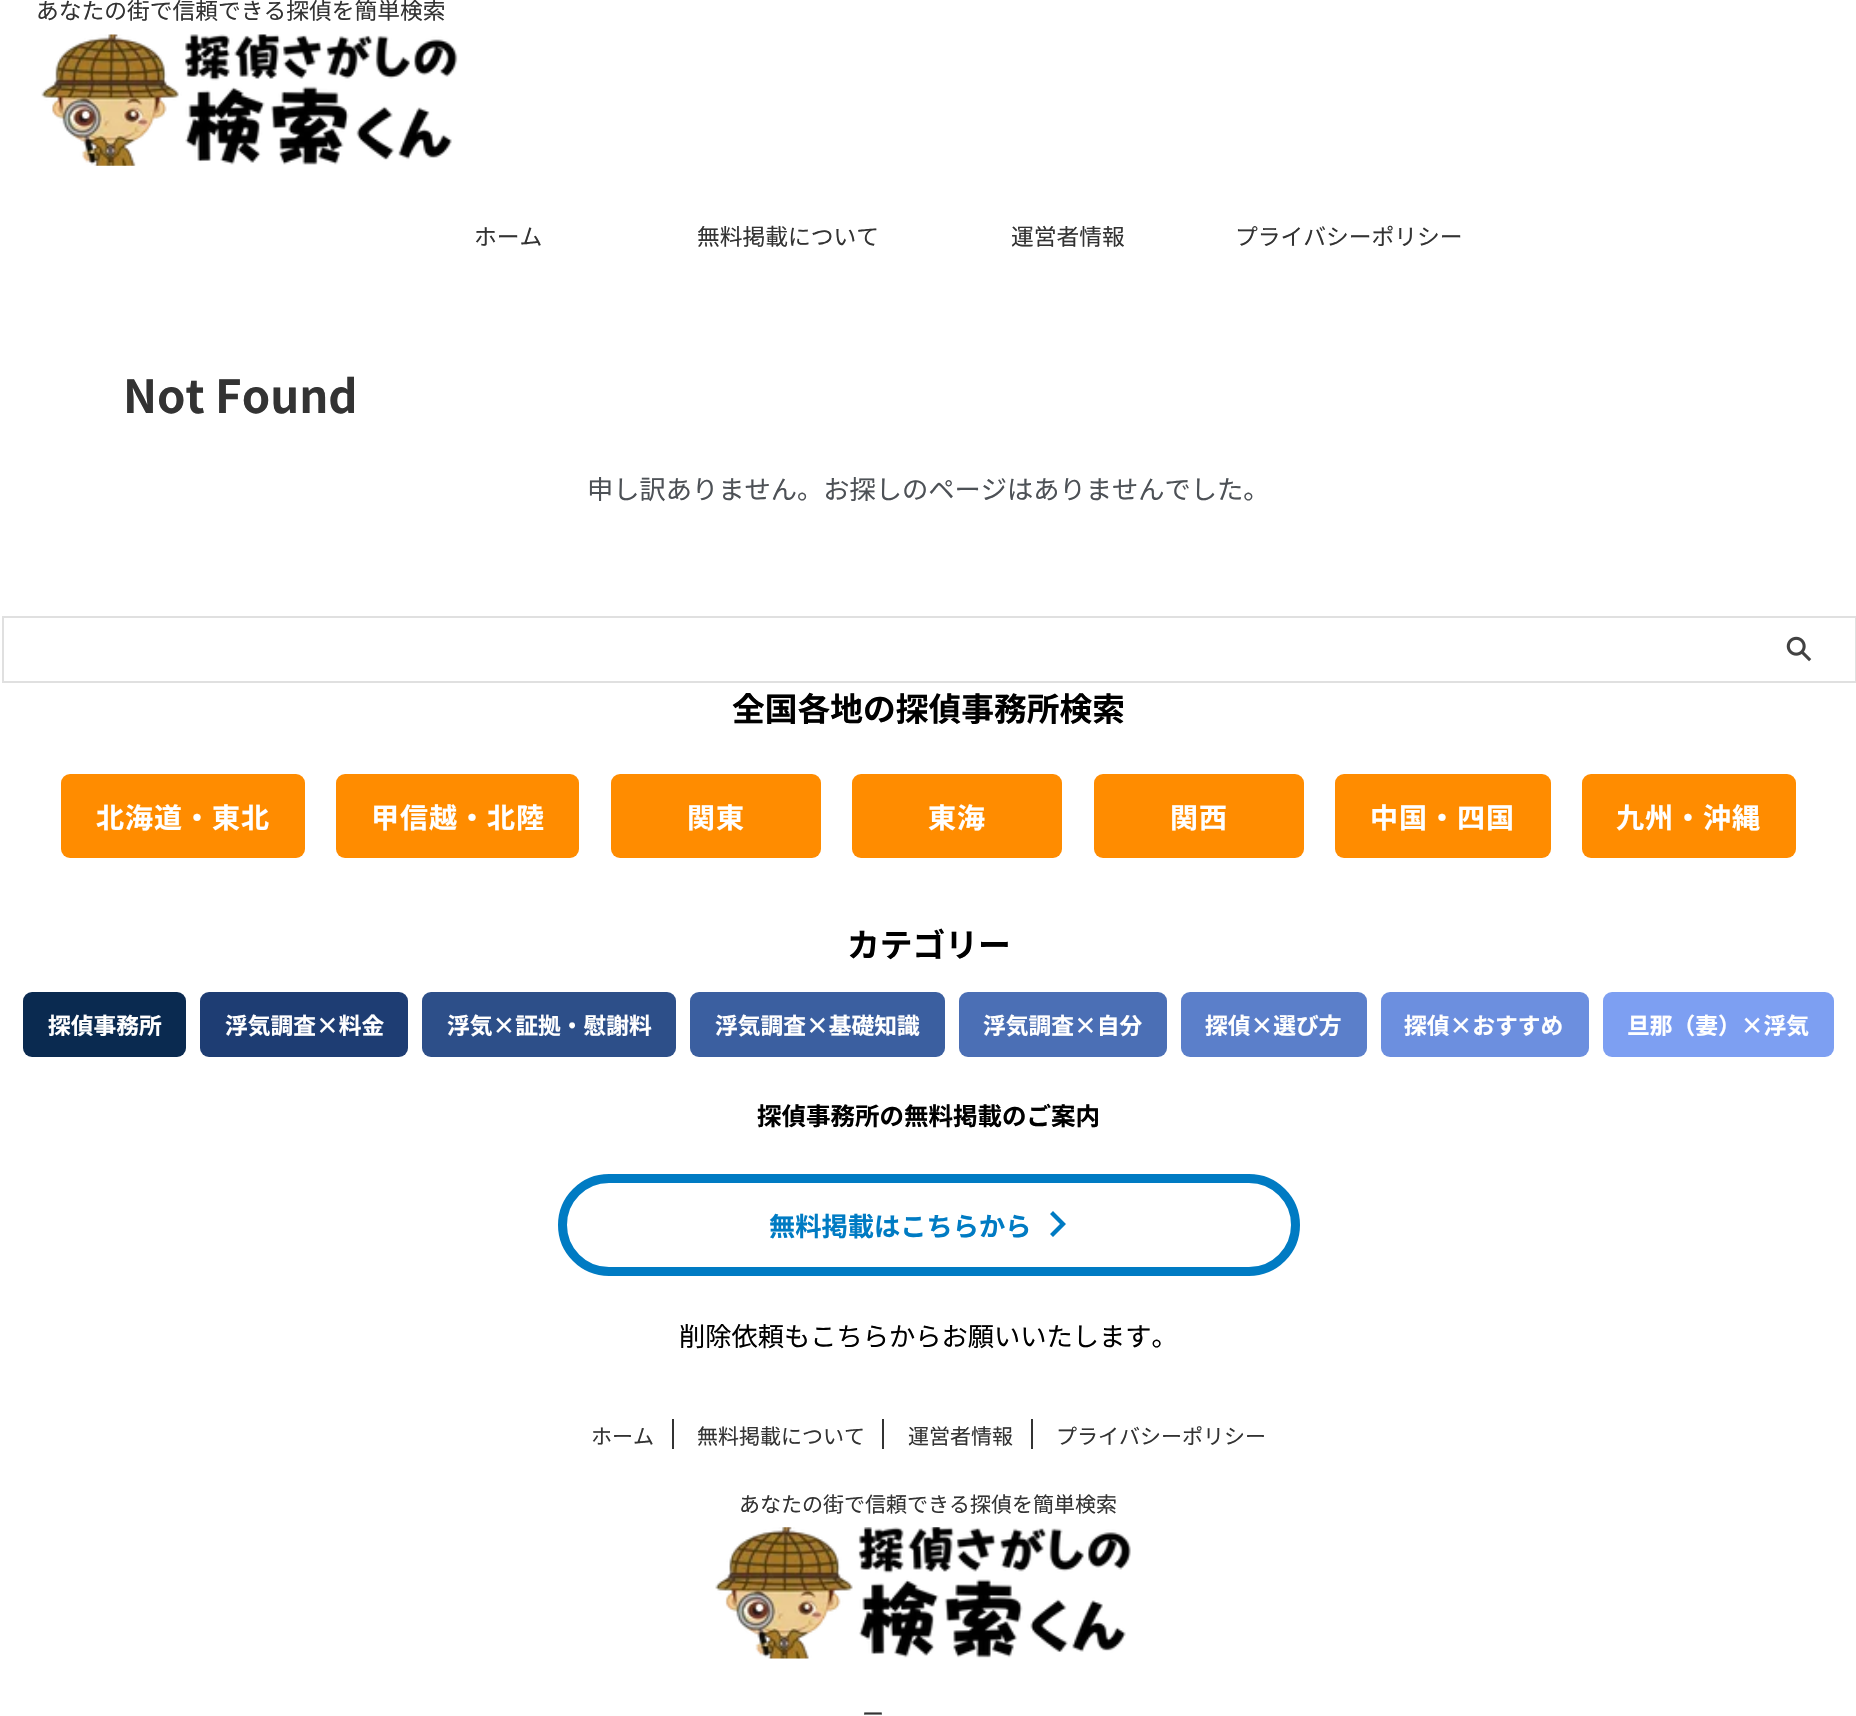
#include "include/core/SkBlurTypes.h"
#include "include/core/SkCanvas.h"
#include "include/core/SkData.h"
#include "include/core/SkFont.h"
#include "include/core/SkFontMgr.h"
#include "include/core/SkImage.h"
#include "include/core/SkMaskFilter.h"
#include "include/core/SkPaint.h"
#include "include/core/SkPathBuilder.h"
#include "include/core/SkTextBlob.h"
#include "include/effects/SkDashPathEffect.h"
#include "include/effects/SkGradientShader.h"
#include "include/utils/SkParsePath.h"

extern sk_sp<SkFontMgr> fontMgr;

static SkFont font(const char* family, int weight, float size, bool italic = false) {
    SkFontStyle style(weight, SkFontStyle::kNormal_Width,
        italic ? SkFontStyle::kItalic_Slant : SkFontStyle::kUpright_Slant);
    SkFont result(fontMgr->matchFamilyStyle(family, style), size);
    result.setSubpixel(true);
    return result;
}

static void drawLabel(SkCanvas* canvas, const char* s, float x, float y, const SkFont& font, SkColor color) {
    SkPaint ink(SkColor4f::FromColor(color));
    ink.setAntiAlias(true);
    canvas->drawString(s, x, y, font, ink);
}

static void drawTracked(SkCanvas* canvas, const char* s, float x, float y, const SkFont& font, const SkPaint& ink, float letter, float word) {
    std::vector<SkGlyphID> glyphs(font.countText(s, strlen(s), SkTextEncoding::kUTF8));
    std::vector<float> xs(glyphs.size());
    font.textToGlyphs(s, strlen(s), SkTextEncoding::kUTF8, glyphs);
    font.getXPos(glyphs, xs, x);
    float extra = 0;
    for (size_t i = 0; i < glyphs.size(); i++) {
        xs[i] += extra;
        extra += letter + word * (glyphs[i] == font.unicharToGlyph(' '));
    }
    canvas->drawTextBlob(SkTextBlob::MakeFromPosHGlyphs(glyphs, xs, y, font), 0, 0, ink);
}

static void fillRect(SkCanvas* canvas, float x, float y, float w, float h, SkColor color) {
    SkPaint ink(SkColor4f::FromColor(color));
    ink.setAntiAlias(true);
    canvas->drawRect(SkRect::MakeXYWH(x, y, w, h), ink);
}

static void fillRRect(SkCanvas* canvas, float x, float y, float w, float h, float radius, SkColor color) {
    SkPaint ink(SkColor4f::FromColor(color));
    ink.setAntiAlias(true);
    canvas->drawRoundRect(SkRect::MakeXYWH(x, y, w, h), radius, radius, ink);
}

static void drawPhoto(SkCanvas* canvas, const char* path, float x, float y, float w, float h) {
    auto image = SkImages::DeferredFromEncodedData(SkData::MakeFromFileName(path));
    canvas->drawImageRect(image, SkRect::MakeXYWH(x, y, w, h), SkSamplingOptions());
}

static SkPath parsePath(const char* data, bool evenOdd = false) {
    SkPath result = *SkParsePath::FromSVGString(data);
    if (evenOdd) result.setFillType(SkPathFillType::kEvenOdd);
    return result;
}

void draw(SkCanvas* canvas) {
    SkPaint paint;
    paint.setAntiAlias(true);
    canvas->clear(0xFFFFFFFF);
    SkFont font1 = font("Noto Sans JP", 400, 22.75f);
    drawLabel(canvas, "あなたの街で信頼できる探偵を簡単検索", 36, 19, font1, 0xFF333333);
    drawPhoto(canvas, "assets/img1.png", 41, 34, 417, 132);
    drawLabel(canvas, "ホーム", 474, 245, font1, 0xFF333333);
    drawLabel(canvas, "無料掲載について", 697, 245, font1, 0xFF333333);
    drawLabel(canvas, "運営者情報", 1011, 245, font1, 0xFF333333);
    drawLabel(canvas, "プライバシーポリシー", 1235, 245, font1, 0xFF333333);
    SkFont font2 = font("Noto Sans JP", 700, 45.5f);
    drawLabel(canvas, "Not Found", 123, 413, font2, 0xFF333333);
    SkFont font3 = font("Noto Sans JP", 400, 26.25f);
    drawLabel(canvas, "申し訳ありません。お探しのページはありませんでした。", 587, 499, font3, 0xFF4D5156);
    paint.setStroke(true);
    paint.setStrokeWidth(2);
    paint.setColor(0xFFE0E0E0);
    canvas->drawRect(SkRect::MakeXYWH(3, 617, 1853, 65), paint);
    drawPhoto(canvas, "assets/img2.png", 1786, 636, 26, 26);
    SkFont font4 = font("Noto Sans JP", 700, 32.75f);
    drawLabel(canvas, "全国各地の探偵事務所検索", 732, 721, font4, 0xFF000000);
    fillRRect(canvas, 61, 774, 244, 84, 9, 0xFFFF8C00);
    SkFont font5 = font("Noto Sans JP", 700, 28);
    paint.setStroke(false);
    paint.setColor(0xFFFFFFFF);
    drawTracked(canvas, "北海道・東北", 96, 828, font5, paint, 1, 0);
    fillRRect(canvas, 336, 774, 243, 84, 9, 0xFFFF8C00);
    drawTracked(canvas, "甲信越・北陸", 371, 828, font5, paint, 1, 0);
    fillRRect(canvas, 611, 774, 210, 84, 9, 0xFFFF8C00);
    drawTracked(canvas, "関東", 687, 828, font5, paint, 1, 0);
    fillRRect(canvas, 852, 774, 210, 84, 9, 0xFFFF8C00);
    drawTracked(canvas, "東海", 928, 828, font5, paint, 1, 0);
    fillRRect(canvas, 1094, 774, 210, 84, 9, 0xFFFF8C00);
    drawTracked(canvas, "関西", 1170, 828, font5, paint, 1, 0);
    fillRRect(canvas, 1335, 774, 216, 84, 9, 0xFFFF8C00);
    drawTracked(canvas, "中国・四国", 1370, 828, font5, paint, 1, 0);
    fillRRect(canvas, 1582, 774, 214, 84, 9, 0xFFFF8C00);
    drawTracked(canvas, "九州・沖縄", 1616, 828, font5, paint, 1, 0);
    drawLabel(canvas, "カテゴリー", 847, 957, font4, 0xFF000000);
    fillRRect(canvas, 23, 992, 163, 65, 9, 0xFF0A2A50);
    SkFont font6 = font("Noto Sans JP", 700, 22.75f);
    drawLabel(canvas, "探偵事務所", 48, 1034, font6, 0xFFFFFFFF);
    fillRRect(canvas, 200, 992, 208, 65, 9, 0xFF1E3D73);
    drawLabel(canvas, "浮気調査×料金", 225, 1034, font6, 0xFFFFFFFF);
    fillRRect(canvas, 422, 992, 254, 65, 9, 0xFF2D4F89);
    drawLabel(canvas, "浮気×証拠・慰謝料", 447, 1034, font6, 0xFFFFFFFF);
    fillRRect(canvas, 690, 992, 255, 65, 9, 0xFF3B5FA0);
    drawLabel(canvas, "浮気調査×基礎知識", 715, 1034, font6, 0xFFFFFFFF);
    fillRRect(canvas, 959, 992, 208, 65, 9, 0xFF4B6FB5);
    drawLabel(canvas, "浮気調査×自分", 983, 1034, font6, 0xFFFFFFFF);
    fillRRect(canvas, 1181, 992, 186, 65, 9, 0xFF5B7FCA);
    drawLabel(canvas, "探偵×選び方", 1205, 1034, font6, 0xFFFFFFFF);
    fillRRect(canvas, 1381, 992, 208, 65, 9, 0xFF6C8FDF);
    drawLabel(canvas, "探偵×おすすめ", 1404, 1034, font6, 0xFFFFFFFF);
    fillRRect(canvas, 1603, 992, 231, 65, 9, 0xFF7D9FF2);
    drawLabel(canvas, "旦那（妻）×浮気", 1627, 1034, font6, 0xFFFFFFFF);
    SkFont font7 = font("Noto Sans JP", 700, 24.5f);
    drawLabel(canvas, "探偵事務所の無料掲載のご案内", 757, 1125, font7, 0xFF000000);
    paint.setStroke(true);
    paint.setStrokeWidth(9);
    paint.setColor(0xFF007BC3);
    canvas->drawRoundRect(SkRect::MakeXYWH(562.5f, 1178.5f, 733, 93), 46.5f, 46.5f, paint);
    SkFont font8 = font("Noto Sans JP", 700, 26.25f);
    drawLabel(canvas, "無料掲載はこちらから", 769, 1236, font8, 0xFF007BC3);
    paint.setStroke(false);
    canvas->drawPath(parsePath("M1060 1224L1050 1214L1053 1211L1066 1224L1053 1237L1050 1234Z"), paint);
    drawLabel(canvas, "削除依頼もこちらからお願いいたします。", 679, 1346, font3, 0xFF000000);
    SkFont font9 = font("Noto Sans JP", 400, 21);
    drawLabel(canvas, "ホーム", 591, 1444, font9, 0xFF333333);
    fillRect(canvas, 672, 1419, 2, 30, 0xFF333333);
    drawLabel(canvas, "無料掲載について", 697, 1444, font9, 0xFF333333);
    fillRect(canvas, 882, 1419, 2, 30, 0xFF333333);
    drawLabel(canvas, "運営者情報", 908, 1444, font9, 0xFF333333);
    fillRect(canvas, 1031, 1419, 2, 30, 0xFF333333);
    drawLabel(canvas, "プライバシーポリシー", 1056, 1444, font9, 0xFF333333);
    drawLabel(canvas, "あなたの街で信頼できる探偵を簡単検索", 739, 1512, font9, 0xFF333333);
    drawPhoto(canvas, "assets/img3.png", 715, 1527, 416, 132);
    SkFont font10 = font("Noto Sans JP", 400, 22);
    drawLabel(canvas, "ー", 862, 1722, font10, 0xFF333333);
}
